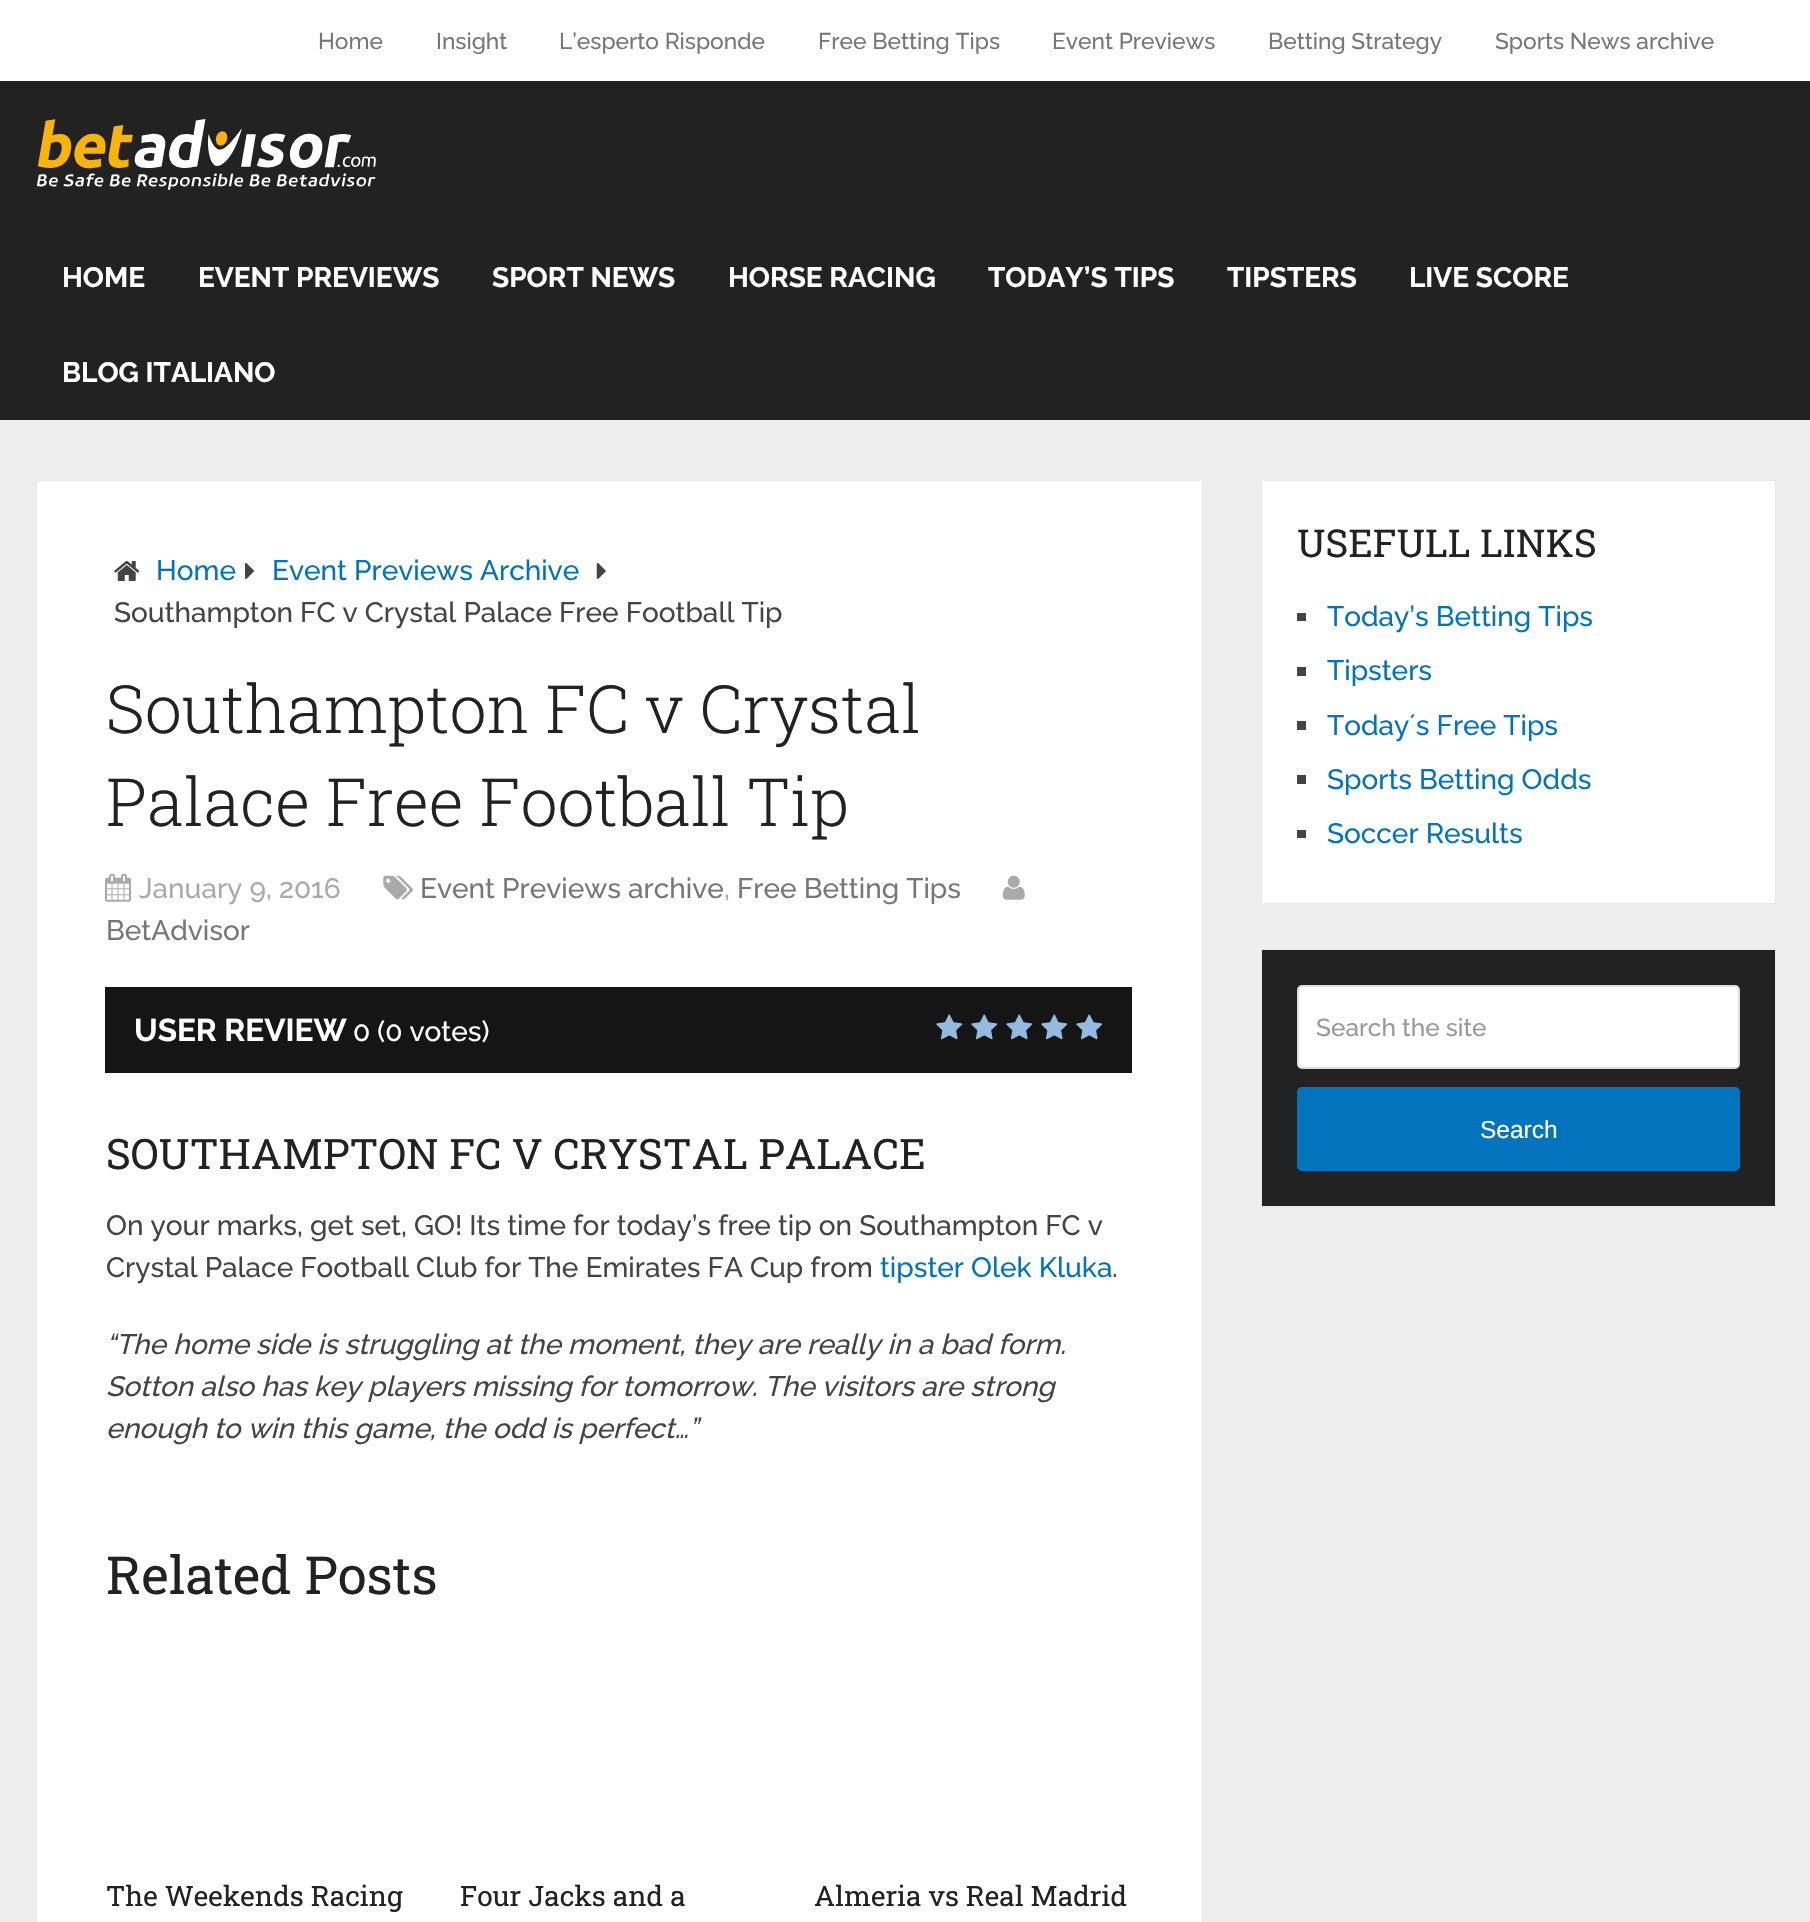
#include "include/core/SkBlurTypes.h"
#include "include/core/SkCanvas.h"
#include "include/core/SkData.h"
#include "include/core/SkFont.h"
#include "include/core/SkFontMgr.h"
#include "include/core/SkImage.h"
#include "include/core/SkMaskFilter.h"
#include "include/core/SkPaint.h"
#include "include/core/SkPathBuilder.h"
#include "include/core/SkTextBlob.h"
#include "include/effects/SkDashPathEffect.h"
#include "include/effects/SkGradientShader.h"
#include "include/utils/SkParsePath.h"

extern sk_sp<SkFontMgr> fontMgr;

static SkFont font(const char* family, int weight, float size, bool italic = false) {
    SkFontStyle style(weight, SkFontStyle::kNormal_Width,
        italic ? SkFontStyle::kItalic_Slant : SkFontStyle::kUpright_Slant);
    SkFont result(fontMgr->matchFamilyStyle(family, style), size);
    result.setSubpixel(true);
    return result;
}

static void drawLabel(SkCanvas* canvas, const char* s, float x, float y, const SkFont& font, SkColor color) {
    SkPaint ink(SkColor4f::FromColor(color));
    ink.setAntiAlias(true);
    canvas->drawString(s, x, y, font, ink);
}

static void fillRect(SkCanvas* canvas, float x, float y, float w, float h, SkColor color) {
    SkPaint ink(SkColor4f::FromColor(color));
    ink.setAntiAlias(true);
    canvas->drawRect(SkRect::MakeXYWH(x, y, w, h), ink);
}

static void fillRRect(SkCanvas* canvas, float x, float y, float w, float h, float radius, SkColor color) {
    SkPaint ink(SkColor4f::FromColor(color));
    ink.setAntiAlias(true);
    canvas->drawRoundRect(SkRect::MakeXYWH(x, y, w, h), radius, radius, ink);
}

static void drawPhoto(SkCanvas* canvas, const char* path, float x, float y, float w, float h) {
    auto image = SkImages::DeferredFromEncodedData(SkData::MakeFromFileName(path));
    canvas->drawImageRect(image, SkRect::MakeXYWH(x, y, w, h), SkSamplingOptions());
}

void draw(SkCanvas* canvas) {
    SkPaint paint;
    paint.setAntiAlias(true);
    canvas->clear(0xFFEEEEEE);
    fillRect(canvas, 0, 0, 1810, 81, 0xFFFFFFFF);
    SkFont font1 = font("Raleway", 500, 22.75f);
    drawLabel(canvas, "Home", 318, 49, font1, 0xFF777777);
    drawLabel(canvas, "Insight", 436, 49, font1, 0xFF777777);
    drawLabel(canvas, "L’esperto Risponde", 559, 49, font1, 0xFF777777);
    drawLabel(canvas, "Free Betting Tips", 818, 49, font1, 0xFF777777);
    drawLabel(canvas, "Event Previews", 1052, 49, font1, 0xFF777777);
    drawLabel(canvas, "Betting Strategy", 1268, 49, font1, 0xFF777777);
    drawLabel(canvas, "Sports News archive", 1495, 49, font1, 0xFF777777);
    fillRect(canvas, 0, 81, 1810, 339, 0xFF222222);
    drawPhoto(canvas, "assets/img1.png", 37, 119, 339, 71);
    SkFont font2 = font("Raleway", 700, 28);
    drawLabel(canvas, "HOME", 62, 287, font2, 0xFFFFFFFF);
    drawLabel(canvas, "EVENT PREVIEWS", 198, 287, font2, 0xFFFFFFFF);
    drawLabel(canvas, "SPORT NEWS", 492, 287, font2, 0xFFFFFFFF);
    drawLabel(canvas, "HORSE RACING", 728, 287, font2, 0xFFFFFFFF);
    drawLabel(canvas, "TODAY’S TIPS", 988, 287, font2, 0xFFFFFFFF);
    drawLabel(canvas, "TIPSTERS", 1227, 287, font2, 0xFFFFFFFF);
    drawLabel(canvas, "LIVE SCORE", 1409, 287, font2, 0xFFFFFFFF);
    drawLabel(canvas, "BLOG ITALIANO", 62, 382, font2, 0xFFFFFFFF);
    paint.setColor(0x1A323232);
    paint.setMaskFilter(SkMaskFilter::MakeBlur(kNormal_SkBlurStyle, 1));
    canvas->drawRect(SkRect::MakeXYWH(37, 481, 1165, 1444), paint);
    paint.setMaskFilter(nullptr);
    fillRect(canvas, 37, 481, 1165, 1441, 0xFFFFFFFF);
    drawPhoto(canvas, "assets/img2.png", 114, 561, 26, 20);
    SkFont font3 = font("Raleway", 500, 28);
    drawLabel(canvas, "Home", 156, 580, font3, 0xFF0274BE);
    drawPhoto(canvas, "assets/img3.png", 245, 563, 9, 16);
    drawLabel(canvas, "Event Previews Archive", 272, 580, font3, 0xFF0274BE);
    drawPhoto(canvas, "assets/img4.png", 596, 563, 10, 16);
    drawLabel(canvas, "Southampton FC v Crystal Palace Free Football Tip", 114, 622, font3, 0xFF444444);
    SkFont font4 = font("Roboto Slab", 300, 66.5f);
    drawLabel(canvas, "Southampton FC v Crystal", 106, 733, font4, 0xFF222222);
    drawLabel(canvas, "Palace Free Football Tip", 106, 826, font4, 0xFF222222);
    drawPhoto(canvas, "assets/img5.png", 105, 873, 26, 29);
    drawLabel(canvas, "January 9, 2016", 139, 898, font3, 0xFFAAAAAA);
    drawPhoto(canvas, "assets/img6.png", 383, 875, 30, 25);
    drawLabel(canvas, "Event Previews archive", 420, 898, font3, 0xFF777777);
    drawLabel(canvas, ",", 724, 898, font3, 0xFFAAAAAA);
    drawLabel(canvas, "Free Betting Tips", 737, 898, font3, 0xFF777777);
    drawPhoto(canvas, "assets/img7.png", 1002, 875, 23, 25);
    drawLabel(canvas, "BetAdvisor", 106, 940, font3, 0xFF777777);
    fillRect(canvas, 105, 987, 1027, 86, 0xFF151515);
    SkFont font5 = font("Raleway", 700, 31.5f);
    drawLabel(canvas, "USER REVIEW", 134, 1041, font5, 0xFFFFFFFF);
    drawLabel(canvas, "0 (0 votes)", 353, 1041, font3, 0xFFFFFFFF);
    drawPhoto(canvas, "assets/img8.png", 936, 1014, 27, 26);
    drawPhoto(canvas, "assets/img8.png", 971, 1014, 27, 26);
    drawPhoto(canvas, "assets/img8.png", 1006, 1014, 27, 26);
    drawPhoto(canvas, "assets/img8.png", 1041, 1014, 27, 26);
    drawPhoto(canvas, "assets/img8.png", 1076, 1014, 27, 26);
    SkFont font6 = font("Roboto Slab", 400, 42);
    drawLabel(canvas, "SOUTHAMPTON FC V CRYSTAL PALACE", 106, 1169, font6, 0xFF222222);
    drawLabel(canvas, "On your marks, get set, GO! Its time for today’s free tip on Southampton FC v", 106, 1235, font3, 0xFF444444);
    drawLabel(canvas, "Crystal Palace Football Club for The Emirates FA Cup from", 106, 1277, font3, 0xFF444444);
    drawLabel(canvas, "tipster Olek Kluka", 880, 1277, font3, 0xFF0274BE);
    drawLabel(canvas, ".", 1112, 1277, font3, 0xFF444444);
    SkFont font7 = font("Raleway", 500, 28, true);
    drawLabel(canvas, "“The home side is struggling at the moment, they are really in a bad form.", 106, 1354, font7, 0xFF444444);
    drawLabel(canvas, "Sotton also has key players missing for tomorrow. The visitors are strong", 106, 1396, font7, 0xFF444444);
    drawLabel(canvas, "enough to win this game, the odd is perfect…”", 106, 1438, font7, 0xFF444444);
    SkFont font8 = font("Roboto Slab", 400, 52.5f);
    drawLabel(canvas, "Related Posts", 106, 1594, font8, 0xFF222222);
    SkFont font9 = font("Roboto Slab", 400, 28);
    drawLabel(canvas, "The Weekends Racing", 106, 1906, font9, 0xFF222222);
    drawLabel(canvas, "Four Jacks and a", 460, 1906, font9, 0xFF222222);
    drawLabel(canvas, "Almeria vs Real Madrid", 814, 1906, font9, 0xFF222222);
    paint.setMaskFilter(SkMaskFilter::MakeBlur(kNormal_SkBlurStyle, 1));
    canvas->drawRect(SkRect::MakeXYWH(1262, 481, 513, 422), paint);
    paint.setMaskFilter(nullptr);
    fillRect(canvas, 1262, 481, 513, 422, 0xFFFFFFFF);
    SkFont font10 = font("Roboto Slab", 400, 38.5f);
    drawLabel(canvas, "USEFULL LINKS", 1297, 557, font10, 0xFF222222);
    fillRect(canvas, 1297, 613, 9, 8, 0xFF444444);
    drawLabel(canvas, "Today’s Betting Tips", 1327, 626, font3, 0xFF0274BE);
    fillRect(canvas, 1297, 667, 9, 9, 0xFF444444);
    drawLabel(canvas, "Tipsters", 1327, 680, font3, 0xFF0274BE);
    fillRect(canvas, 1297, 721, 9, 9, 0xFF444444);
    drawLabel(canvas, "Todayʼs Free Tips", 1327, 735, font3, 0xFF0274BE);
    fillRect(canvas, 1297, 775, 9, 9, 0xFF444444);
    drawLabel(canvas, "Sports Betting Odds", 1327, 789, font3, 0xFF0274BE);
    fillRect(canvas, 1297, 830, 9, 8, 0xFF444444);
    drawLabel(canvas, "Soccer Results", 1327, 843, font3, 0xFF0274BE);
    paint.setMaskFilter(SkMaskFilter::MakeBlur(kNormal_SkBlurStyle, 1));
    canvas->drawRect(SkRect::MakeXYWH(1262, 950, 513, 256), paint);
    paint.setMaskFilter(nullptr);
    fillRect(canvas, 1262, 950, 513, 256, 0xFF222222);
    paint.setColor(0xFFFFFFFF);
    canvas->drawRoundRect(SkRect::MakeXYWH(1298, 986, 441, 82), 4, 4, paint);
    paint.setStroke(true);
    paint.setStrokeWidth(2);
    paint.setColor(0xFFDDDDDD);
    canvas->drawRoundRect(SkRect::MakeXYWH(1298, 986, 441, 82), 4, 4, paint);
    SkFont font11 = font("Raleway", 500, 24.5f);
    drawLabel(canvas, "Search the site", 1316, 1036, font11, 0xFF999999);
    fillRRect(canvas, 1297, 1087, 443, 84, 5, 0xFF0274BE);
    SkFont font12 = font("Liberation Sans", 400, 24.5f);
    drawLabel(canvas, "Search", 1480, 1138, font12, 0xFFFFFFFF);
}
